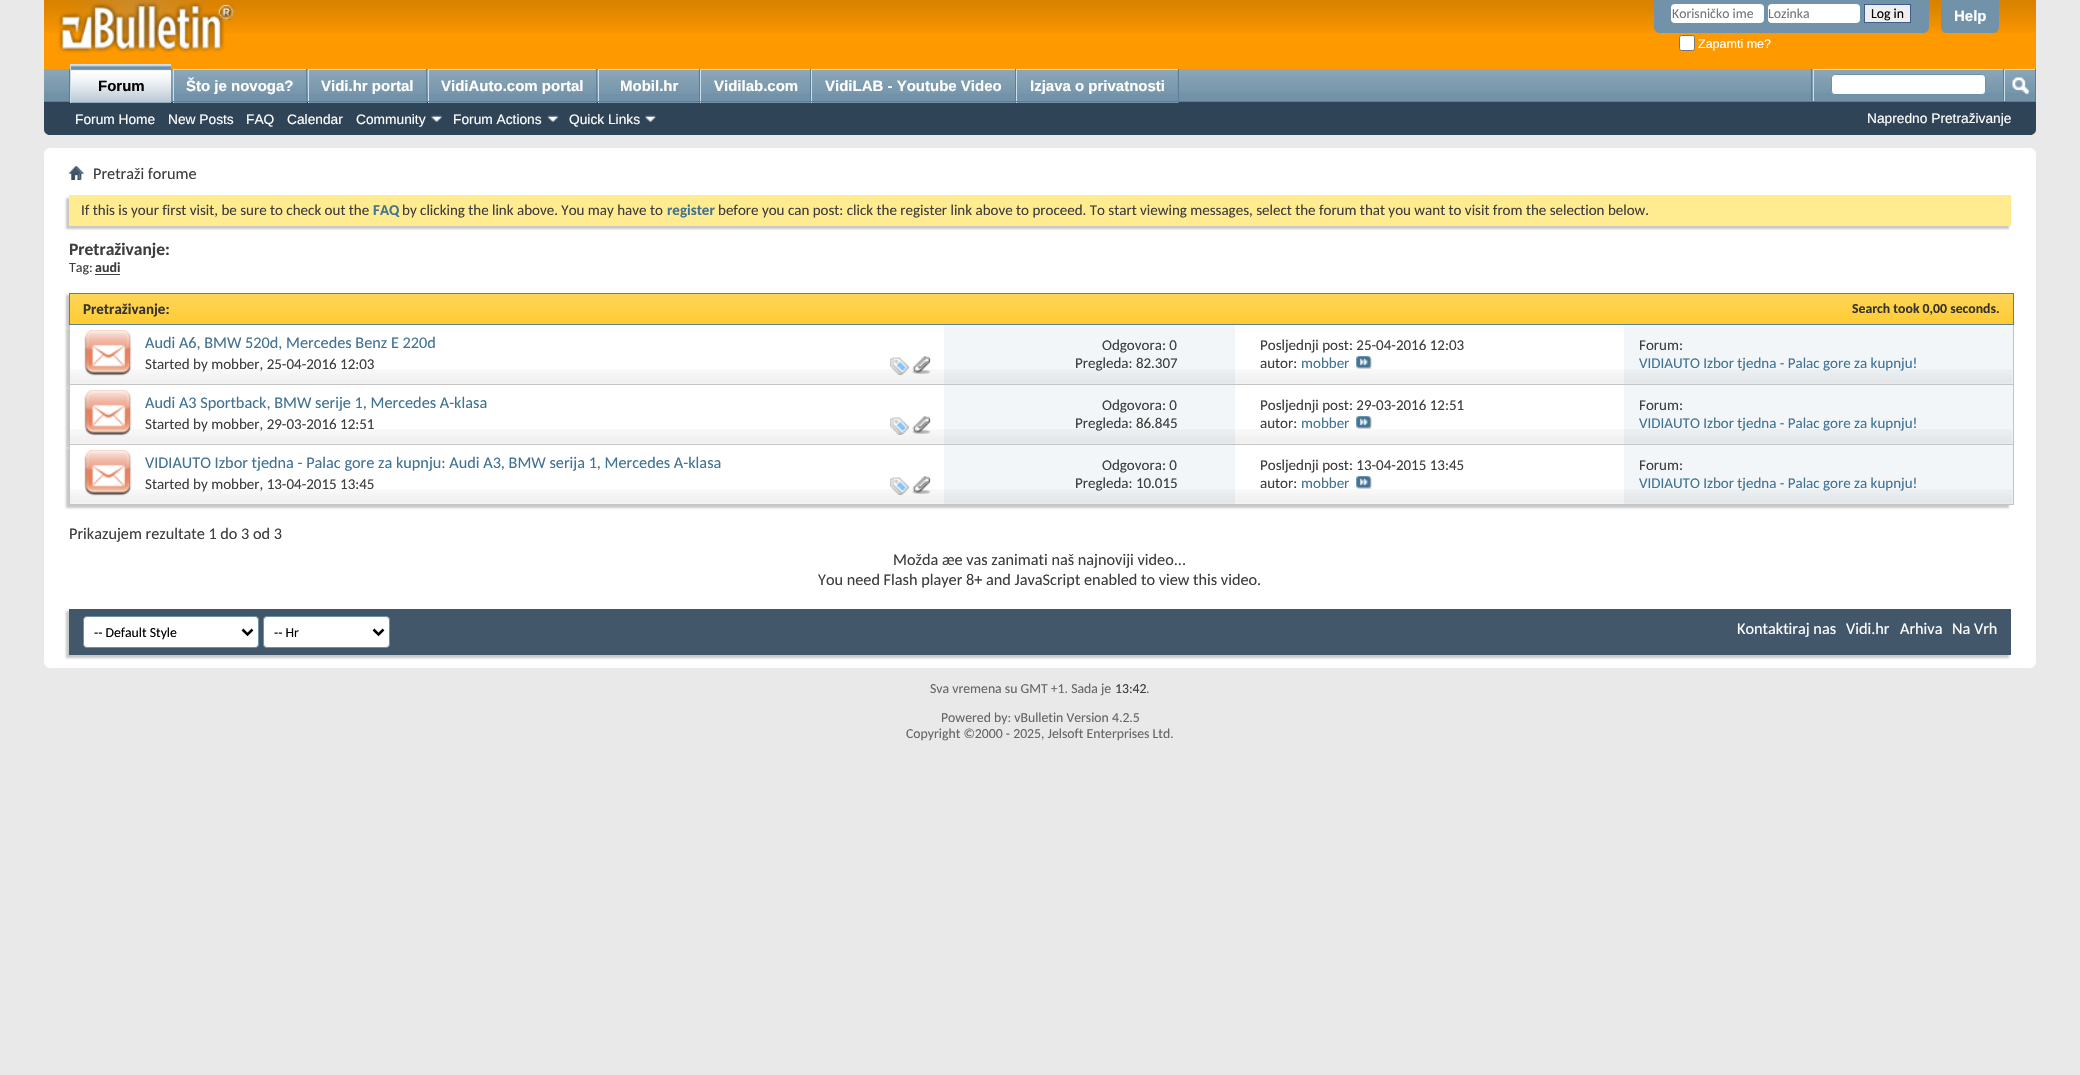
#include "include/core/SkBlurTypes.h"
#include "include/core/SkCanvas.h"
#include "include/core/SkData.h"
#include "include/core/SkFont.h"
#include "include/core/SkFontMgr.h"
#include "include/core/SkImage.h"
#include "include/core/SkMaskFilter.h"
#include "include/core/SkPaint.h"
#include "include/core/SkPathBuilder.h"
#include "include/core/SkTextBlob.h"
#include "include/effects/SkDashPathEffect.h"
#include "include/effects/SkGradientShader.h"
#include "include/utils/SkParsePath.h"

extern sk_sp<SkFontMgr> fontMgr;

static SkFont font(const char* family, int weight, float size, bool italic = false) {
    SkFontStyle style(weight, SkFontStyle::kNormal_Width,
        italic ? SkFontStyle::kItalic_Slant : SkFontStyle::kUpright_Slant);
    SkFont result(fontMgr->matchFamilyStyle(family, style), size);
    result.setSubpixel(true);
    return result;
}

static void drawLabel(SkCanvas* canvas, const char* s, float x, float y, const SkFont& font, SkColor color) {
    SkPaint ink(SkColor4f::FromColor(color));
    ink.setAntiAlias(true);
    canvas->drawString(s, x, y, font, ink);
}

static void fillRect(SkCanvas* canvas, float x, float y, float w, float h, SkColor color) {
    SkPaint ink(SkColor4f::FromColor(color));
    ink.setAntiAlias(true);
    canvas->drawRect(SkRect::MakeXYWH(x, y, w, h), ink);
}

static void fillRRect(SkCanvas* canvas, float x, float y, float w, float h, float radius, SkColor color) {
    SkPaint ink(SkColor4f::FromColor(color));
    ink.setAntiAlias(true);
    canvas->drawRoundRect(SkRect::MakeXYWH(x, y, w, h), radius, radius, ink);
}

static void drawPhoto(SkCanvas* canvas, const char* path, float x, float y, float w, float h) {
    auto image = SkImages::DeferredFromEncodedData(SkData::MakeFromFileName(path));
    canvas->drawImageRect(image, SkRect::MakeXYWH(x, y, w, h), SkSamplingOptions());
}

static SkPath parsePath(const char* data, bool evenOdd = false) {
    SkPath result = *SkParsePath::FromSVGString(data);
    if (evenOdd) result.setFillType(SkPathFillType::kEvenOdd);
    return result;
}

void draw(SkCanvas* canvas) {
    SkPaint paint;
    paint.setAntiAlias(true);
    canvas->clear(0xFFE9E9E9);
    paint.setColor(0xFFFF9900);
    canvas->drawPath(parsePath("M44 0H2036V129C2036 132.5 2033.5 135 2030 135H50C46.5 135 44 132.5 44 129Z"), paint);
    drawPhoto(canvas, "assets/img1.png", 44, 0, 1992, 33);
    drawPhoto(canvas, "assets/img2.png", 58, 0, 176, 53);
    paint.setColor(0xFF7192A8);
    canvas->drawPath(parsePath("M1654 0H1929V27C1929 30.5 1926.5 33 1923 33H1660C1656.5 33 1654 30.5 1654 27Z"), paint);
    fillRRect(canvas, 1671, 4, 93, 19, 4, 0xFFFFFFFF);
    SkFont font1 = font("Carlito", 400, 13.75f);
    drawLabel(canvas, "Korisničko ime", 1672, 18, font1, 0xFF777777);
    fillRRect(canvas, 1768, 4, 92, 19, 4, 0xFFFFFFFF);
    drawLabel(canvas, "Lozinka", 1768, 18, font1, 0xFF777777);
    paint.setColor(0xFFEFEFEF);
    canvas->drawRect(SkRect::MakeXYWH(1864.5f, 4.5f, 46, 18), paint);
    paint.setStroke(true);
    paint.setStrokeWidth(1);
    paint.setColor(0xFF415D8D);
    canvas->drawRect(SkRect::MakeXYWH(1864.5f, 4.5f, 46, 18), paint);
    drawLabel(canvas, "Log in", 1871, 18, font1, 0xFF000000);
    paint.setStroke(false);
    paint.setColor(0xFFFFFFFF);
    canvas->drawRoundRect(SkRect::MakeXYWH(1679.5f, 35.5f, 15, 15), 2, 2, paint);
    paint.setStroke(true);
    paint.setColor(0xFF767676);
    canvas->drawRoundRect(SkRect::MakeXYWH(1679.5f, 35.5f, 15, 15), 2, 2, paint);
    SkFont font2 = font("Liberation Sans", 400, 12.5f);
    drawLabel(canvas, "Zapamti me?", 1698, 48, font2, 0xFFFFFFFF);
    paint.setStroke(false);
    paint.setColor(0xFF7192A8);
    canvas->drawPath(parsePath("M1941 0H1999V27C1999 30.5 1996.5 33 1993 33H1947C1943.5 33 1941 30.5 1941 27Z"), paint);
    SkFont font3 = font("Liberation Sans", 700, 15);
    drawLabel(canvas, "Help", 1954, 21, font3, 0xFFFFFFFF);
    paint.setColor(0xFF2F4456);
    canvas->drawPath(parsePath("M44 69H2036V129C2036 132.5 2033.5 135 2030 135H50C46.5 135 44 132.5 44 129Z"), paint);
    fillRect(canvas, 44, 69, 1991, 32, 0xFF7192A8);
    drawPhoto(canvas, "assets/img3.png", 44, 68, 1992, 25);
    fillRect(canvas, 171, 69, 1, 32, 0xFF5A7F97);
    fillRect(canvas, 69, 69, 1, 32, 0xFF5A7F97);
    fillRect(canvas, 306, 69, 1, 34, 0xFF5A7F97);
    fillRect(canvas, 174, 70, 132, 33, 0xFF7192A8);
    drawPhoto(canvas, "assets/img5.png", 172, 70, 135, 24);
    fillRect(canvas, 173, 69, 133, 1, 0xFFCEDFEB);
    fillRect(canvas, 173, 69, 1, 34, 0xFFCEDFEB);
    fillRect(canvas, 426, 69, 1, 34, 0xFF5A7F97);
    fillRect(canvas, 309, 70, 117, 33, 0xFF7192A8);
    drawPhoto(canvas, "assets/img6.png", 307, 70, 120, 24);
    fillRect(canvas, 308, 69, 118, 1, 0xFFCEDFEB);
    fillRect(canvas, 308, 69, 1, 34, 0xFFCEDFEB);
    fillRect(canvas, 596, 69, 1, 34, 0xFF5A7F97);
    fillRect(canvas, 429, 70, 167, 33, 0xFF7192A8);
    drawPhoto(canvas, "assets/img7.png", 427, 70, 170, 24);
    fillRect(canvas, 428, 69, 168, 1, 0xFFCEDFEB);
    fillRect(canvas, 428, 69, 1, 34, 0xFFCEDFEB);
    fillRect(canvas, 699, 69, 1, 34, 0xFF5A7F97);
    fillRect(canvas, 599, 70, 100, 33, 0xFF7192A8);
    drawPhoto(canvas, "assets/img8.png", 597, 70, 102, 24);
    fillRect(canvas, 598, 69, 101, 1, 0xFFCEDFEB);
    fillRect(canvas, 598, 69, 1, 34, 0xFFCEDFEB);
    fillRect(canvas, 810, 69, 1, 34, 0xFF5A7F97);
    fillRect(canvas, 701, 70, 109, 33, 0xFF7192A8);
    fillRect(canvas, 700, 69, 110, 1, 0xFFCEDFEB);
    fillRect(canvas, 700, 69, 1, 34, 0xFFCEDFEB);
    fillRect(canvas, 1015, 69, 1, 34, 0xFF5A7F97);
    fillRect(canvas, 812, 70, 203, 33, 0xFF7192A8);
    fillRect(canvas, 811, 69, 204, 1, 0xFFCEDFEB);
    fillRect(canvas, 811, 69, 1, 34, 0xFFCEDFEB);
    fillRect(canvas, 1178, 69, 1, 34, 0xFF5A7F97);
    fillRect(canvas, 1017, 70, 161, 33, 0xFF7192A8);
    fillRect(canvas, 1016, 69, 162, 1, 0xFFCEDFEB);
    fillRect(canvas, 1016, 69, 1, 34, 0xFFCEDFEB);
    fillRect(canvas, 44, 101, 1992, 1, 0xFF5A7F97);
    fillRect(canvas, 71, 65, 100, 38, 0xFF7192A8);
    drawPhoto(canvas, "assets/img4.png", 71, 65, 101, 38);
    fillRect(canvas, 70, 64, 101, 1, 0xFFCEDFEB);
    fillRect(canvas, 70, 64, 1, 39, 0xFFCEDFEB);
    drawLabel(canvas, "Forum", 98, 91, font3, 0xFF000000);
    drawLabel(canvas, "Što je novoga?", 186, 91, font3, 0xFFFFFFFF);
    drawLabel(canvas, "Vidi.hr portal", 321, 91, font3, 0xFFFFFFFF);
    drawLabel(canvas, "VidiAuto.com portal", 441, 91, font3, 0xFFFFFFFF);
    drawLabel(canvas, "Mobil.hr", 620, 91, font3, 0xFFFFFFFF);
    drawPhoto(canvas, "assets/img9.png", 701, 70, 109, 24);
    drawLabel(canvas, "Vidilab.com", 714, 91, font3, 0xFFFFFFFF);
    drawPhoto(canvas, "assets/img10.png", 812, 70, 203, 24);
    drawLabel(canvas, "VidiLAB - Youtube Video", 825, 91, font3, 0xFFFFFFFF);
    drawPhoto(canvas, "assets/img11.png", 1017, 70, 161, 24);
    drawLabel(canvas, "Izjava o privatnosti", 1030, 91, font3, 0xFFFFFFFF);
    SkFont font4 = font("Liberation Sans", 400, 13.75f);
    drawLabel(canvas, "Forum Home", 75, 124, font4, 0xFFFFFFFF);
    drawLabel(canvas, "New Posts", 168, 124, font4, 0xFFFFFFFF);
    drawLabel(canvas, "FAQ", 246, 124, font4, 0xFFFFFFFF);
    drawLabel(canvas, "Calendar", 287, 124, font4, 0xFFFFFFFF);
    drawLabel(canvas, "Community", 356, 124, font4, 0xFFFFFFFF);
    drawPhoto(canvas, "assets/img12.png", 431, 115, 12, 7);
    drawLabel(canvas, "Forum Actions", 453, 124, font4, 0xFFFFFFFF);
    drawPhoto(canvas, "assets/img13.png", 547, 115, 12, 7);
    drawLabel(canvas, "Quick Links", 569, 124, font4, 0xFFFFFFFF);
    drawPhoto(canvas, "assets/img14.png", 645, 115, 11, 7);
    fillRect(canvas, 1811, 69, 1, 32, 0xFF5A7F97);
    fillRect(canvas, 1813, 69, 190, 1, 0xFFCEDFEB);
    fillRect(canvas, 1813, 69, 1, 32, 0xFFCEDFEB);
    paint.setColor(0xFFFFFFFF);
    canvas->drawRoundRect(SkRect::MakeXYWH(1831.5f, 74.5f, 154, 20), 3.5f, 3.5f, paint);
    paint.setStroke(true);
    paint.setColor(0xFF6B91AB);
    canvas->drawRoundRect(SkRect::MakeXYWH(1831.5f, 74.5f, 154, 20), 3.5f, 3.5f, paint);
    fillRect(canvas, 2035, 69, 1, 32, 0xFF5A7F97);
    fillRect(canvas, 2003, 69, 1, 32, 0xFF5A7F97);
    fillRect(canvas, 2004, 69, 31, 1, 0xFFCEDFEB);
    fillRect(canvas, 2004, 69, 1, 32, 0xFFCEDFEB);
    drawPhoto(canvas, "assets/img15.png", 2012, 77, 17, 18);
    drawLabel(canvas, "Napredno Pretraživanje", 1867, 123, font4, 0xFFFFFFFF);
    fillRRect(canvas, 44, 148, 1992, 520, 6, 0xFFFFFFFF);
    drawPhoto(canvas, "assets/img16.png", 68, 166, 16, 14);
    SkFont font5 = font("Carlito", 400, 16.25f);
    drawLabel(canvas, "Pretraži forume", 93, 179, font5, 0xFF3E3E3E);
    paint.setStroke(false);
    paint.setColor(0xFFC8C8C8);
    paint.setMaskFilter(SkMaskFilter::MakeBlur(kNormal_SkBlurStyle, 1));
    canvas->drawRect(SkRect::MakeXYWH(66, 198, 1943, 31), paint);
    paint.setMaskFilter(nullptr);
    fillRect(canvas, 69, 195, 1942, 31, 0xFFFFEB90);
    SkFont font6 = font("Carlito", 400, 15);
    drawLabel(canvas, "If this is your first visit, be sure to check out the", 81, 215, font6, 0xFF3E3E3E);
    SkFont font7 = font("Carlito", 700, 15);
    drawLabel(canvas, "FAQ", 373, 215, font7, 0xFF417394);
    drawLabel(canvas, "by clicking the link above. You may have to", 402, 215, font6, 0xFF3E3E3E);
    drawLabel(canvas, "register", 667, 215, font7, 0xFF417394);
    drawLabel(canvas, "before you can post: click the register link above to proceed. To start viewing messages, select the forum that you want to visit from the selection below.", 718, 215, font6, 0xFF3E3E3E);
    SkFont font8 = font("Carlito", 700, 17.5f);
    drawLabel(canvas, "Pretraživanje:", 69, 255, font8, 0xFF3E3E3E);
    SkFont font9 = font("Carlito", 400, 14);
    drawLabel(canvas, "Tag:", 69, 272, font9, 0xFF3E3E3E);
    SkFont font10 = font("Carlito", 700, 14);
    drawLabel(canvas, "audi", 95, 272, font10, 0xFF3E3E3E);
    fillRect(canvas, 95, 274, 25, 1, 0xFF3E3E3E);
    paint.setMaskFilter(SkMaskFilter::MakeBlur(kNormal_SkBlurStyle, 1));
    canvas->drawRect(SkRect::MakeXYWH(66, 295, 1945, 33), paint);
    paint.setMaskFilter(nullptr);
    fillRect(canvas, 70, 294, 1943, 30, 0xFFFFCC33);
    drawPhoto(canvas, "assets/img17.png", 70, 294, 1943, 25);
    paint.setStroke(true);
    paint.setColor(0xFF5A7F97);
    canvas->drawRect(SkRect::MakeXYWH(69.5f, 293.5f, 1944, 31), paint);
    drawLabel(canvas, "Pretraživanje:", 83, 314, font7, 0xFF333333);
    SkFont font11 = font("Carlito", 700, 13.75f);
    drawLabel(canvas, "Search took 0,00 seconds.", 1852, 313, font11, 0xFF333333);
    paint.setStroke(false);
    paint.setColor(0xFFC8C8C8);
    paint.setMaskFilter(SkMaskFilter::MakeBlur(kNormal_SkBlurStyle, 1));
    canvas->drawRect(SkRect::MakeXYWH(66, 328, 1943, 60), paint);
    paint.setMaskFilter(nullptr);
    fillRect(canvas, 70, 325, 1554, 59, 0xFFFFFFFF);
    drawPhoto(canvas, "assets/img18.png", 70, 369, 1554, 15);
    fillRect(canvas, 2013, 325, 1, 180, 0xFFC4C4C4);
    fillRect(canvas, 69, 384, 1945, 1, 0xFFC4C4C4);
    fillRect(canvas, 69, 325, 1, 60, 0xFFC4C4C4);
    drawPhoto(canvas, "assets/img19.png", 84, 330, 48, 46);
    drawLabel(canvas, "Audi A6, BMW 520d, Mercedes Benz E 220d", 145, 348, font5, 0xFF417394);
    drawLabel(canvas, "Started by mobber, 25-04-2016 12:03", 145, 369, font6, 0xFF3E3E3E);
    drawPhoto(canvas, "assets/img20.png", 890, 357, 19, 18);
    drawPhoto(canvas, "assets/img21.png", 912, 356, 19, 18);
    fillRect(canvas, 944, 325, 291, 59, 0xFFF2F6F8);
    drawPhoto(canvas, "assets/img22.png", 944, 369, 291, 15);
    drawLabel(canvas, "Odgovora: 0", 1102, 350, font6, 0xFF3E3E3E);
    drawLabel(canvas, "Pregleda: 82.307", 1075, 368, font6, 0xFF3E3E3E);
    drawLabel(canvas, "Posljednji post: 25-04-2016 12:03", 1260, 350, font6, 0xFF3E3E3E);
    drawLabel(canvas, "autor:", 1260, 368, font6, 0xFF3E3E3E);
    drawLabel(canvas, "mobber", 1301, 368, font6, 0xFF417394);
    drawPhoto(canvas, "assets/img23.png", 1356, 356, 16, 13);
    fillRect(canvas, 1624, 325, 389, 59, 0xFFF2F6F8);
    drawPhoto(canvas, "assets/img24.png", 1624, 369, 389, 15);
    drawLabel(canvas, "Forum:", 1639, 350, font6, 0xFF3E3E3E);
    drawLabel(canvas, "VIDIAUTO Izbor tjedna - Palac gore za kupnju!", 1639, 368, font6, 0xFF417394);
    paint.setMaskFilter(SkMaskFilter::MakeBlur(kNormal_SkBlurStyle, 1));
    canvas->drawRect(SkRect::MakeXYWH(66, 388, 1943, 60), paint);
    paint.setMaskFilter(nullptr);
    fillRect(canvas, 70, 385, 1554, 59, 0xFFFFFFFF);
    drawPhoto(canvas, "assets/img25.png", 70, 429, 1554, 15);
    fillRect(canvas, 69, 444, 1945, 1, 0xFFC4C4C4);
    fillRect(canvas, 69, 385, 1, 60, 0xFFC4C4C4);
    drawPhoto(canvas, "assets/img19.png", 84, 390, 48, 46);
    drawLabel(canvas, "Audi A3 Sportback, BMW serije 1, Mercedes A-klasa", 145, 408, font5, 0xFF417394);
    drawLabel(canvas, "Started by mobber, 29-03-2016 12:51", 145, 429, font6, 0xFF3E3E3E);
    drawPhoto(canvas, "assets/img20.png", 890, 417, 19, 18);
    drawPhoto(canvas, "assets/img21.png", 912, 416, 19, 18);
    fillRect(canvas, 944, 385, 291, 59, 0xFFF2F6F8);
    drawPhoto(canvas, "assets/img26.png", 944, 429, 291, 15);
    drawLabel(canvas, "Odgovora: 0", 1102, 410, font6, 0xFF3E3E3E);
    drawLabel(canvas, "Pregleda: 86.845", 1075, 428, font6, 0xFF3E3E3E);
    drawLabel(canvas, "Posljednji post: 29-03-2016 12:51", 1260, 410, font6, 0xFF3E3E3E);
    drawLabel(canvas, "autor:", 1260, 428, font6, 0xFF3E3E3E);
    drawLabel(canvas, "mobber", 1301, 428, font6, 0xFF417394);
    drawPhoto(canvas, "assets/img23.png", 1356, 416, 16, 13);
    fillRect(canvas, 1624, 385, 389, 59, 0xFFF2F6F8);
    drawPhoto(canvas, "assets/img27.png", 1624, 429, 389, 15);
    drawLabel(canvas, "Forum:", 1639, 410, font6, 0xFF3E3E3E);
    drawLabel(canvas, "VIDIAUTO Izbor tjedna - Palac gore za kupnju!", 1639, 428, font6, 0xFF417394);
    paint.setMaskFilter(SkMaskFilter::MakeBlur(kNormal_SkBlurStyle, 1));
    canvas->drawRect(SkRect::MakeXYWH(66, 448, 1943, 60), paint);
    paint.setMaskFilter(nullptr);
    fillRect(canvas, 70, 445, 1554, 59, 0xFFFFFFFF);
    drawPhoto(canvas, "assets/img25.png", 70, 489, 1554, 15);
    fillRect(canvas, 69, 504, 1945, 1, 0xFFC4C4C4);
    fillRect(canvas, 69, 445, 1, 60, 0xFFC4C4C4);
    drawPhoto(canvas, "assets/img19.png", 84, 450, 48, 46);
    drawLabel(canvas, "VIDIAUTO Izbor tjedna - Palac gore za kupnju: Audi A3, BMW serija 1, Mercedes A-klasa", 145, 468, font5, 0xFF417394);
    drawLabel(canvas, "Started by mobber, 13-04-2015 13:45", 145, 489, font6, 0xFF3E3E3E);
    drawPhoto(canvas, "assets/img20.png", 890, 477, 19, 18);
    drawPhoto(canvas, "assets/img21.png", 912, 476, 19, 18);
    fillRect(canvas, 944, 445, 291, 59, 0xFFF2F6F8);
    drawPhoto(canvas, "assets/img26.png", 944, 489, 291, 15);
    drawLabel(canvas, "Odgovora: 0", 1102, 470, font6, 0xFF3E3E3E);
    drawLabel(canvas, "Pregleda: 10.015", 1075, 488, font6, 0xFF3E3E3E);
    drawLabel(canvas, "Posljednji post: 13-04-2015 13:45", 1260, 470, font6, 0xFF3E3E3E);
    drawLabel(canvas, "autor:", 1260, 488, font6, 0xFF3E3E3E);
    drawLabel(canvas, "mobber", 1301, 488, font6, 0xFF417394);
    drawPhoto(canvas, "assets/img23.png", 1356, 476, 16, 13);
    fillRect(canvas, 1624, 445, 389, 59, 0xFFF2F6F8);
    drawPhoto(canvas, "assets/img27.png", 1624, 489, 389, 15);
    drawLabel(canvas, "Forum:", 1639, 470, font6, 0xFF3E3E3E);
    drawLabel(canvas, "VIDIAUTO Izbor tjedna - Palac gore za kupnju!", 1639, 488, font6, 0xFF417394);
    drawLabel(canvas, "Prikazujem rezultate 1 do 3 od 3", 69, 539, font5, 0xFF3E3E3E);
    drawLabel(canvas, "Možda æe vas zanimati naš najnoviji video...", 893, 565, font5, 0xFF3E3E3E);
    drawLabel(canvas, "You need Flash player 8+ and JavaScript enabled to view this video.", 818, 585, font5, 0xFF3E3E3E);
    paint.setMaskFilter(SkMaskFilter::MakeBlur(kNormal_SkBlurStyle, 1));
    canvas->drawRect(SkRect::MakeXYWH(66, 611, 1943, 47), paint);
    paint.setMaskFilter(nullptr);
    fillRect(canvas, 69, 609, 1942, 46, 0xFF425769);
    paint.setColor(0xFFFFFFFF);
    canvas->drawRoundRect(SkRect::MakeXYWH(83.5f, 616.5f, 175, 31), 3.5f, 3.5f, paint);
    paint.setStroke(true);
    paint.setColor(0xFF6B91AB);
    canvas->drawRoundRect(SkRect::MakeXYWH(83.5f, 616.5f, 175, 31), 3.5f, 3.5f, paint);
    paint.setStrokeWidth(2.5f);
    paint.setColor(0xFF000000);
    canvas->drawPath(parsePath("M242.5 629.5L247.5 634.5L252.5 629.5"), paint);
    drawLabel(canvas, "-- Default Style", 94, 637, font1, 0xFF000000);
    paint.setStroke(false);
    paint.setColor(0xFFFFFFFF);
    canvas->drawRoundRect(SkRect::MakeXYWH(263.5f, 616.5f, 126, 31), 3.5f, 3.5f, paint);
    paint.setStroke(true);
    paint.setStrokeWidth(1);
    paint.setColor(0xFF6B91AB);
    canvas->drawRoundRect(SkRect::MakeXYWH(263.5f, 616.5f, 126, 31), 3.5f, 3.5f, paint);
    paint.setStrokeWidth(2.5f);
    paint.setColor(0xFF000000);
    canvas->drawPath(parsePath("M373.5 629.5L378.5 634.5L383.5 629.5"), paint);
    drawLabel(canvas, "-- Hr", 274, 637, font1, 0xFF000000);
    drawLabel(canvas, "Kontaktiraj nas", 1737, 634, font5, 0xFFFFFFFF);
    drawLabel(canvas, "Vidi.hr", 1846, 634, font5, 0xFFFFFFFF);
    drawLabel(canvas, "Arhiva", 1900, 634, font5, 0xFFFFFFFF);
    drawLabel(canvas, "Na Vrh", 1952, 634, font5, 0xFFFFFFFF);
    drawLabel(canvas, "Sva vremena su GMT +1. Sada je", 930, 693, font1, 0xFF666666);
    drawLabel(canvas, "13:42", 1115, 693, font1, 0xFF3E3E3E);
    drawLabel(canvas, ".", 1146, 693, font1, 0xFF666666);
    drawLabel(canvas, "Powered by: vBulletin Version 4.2.5", 941, 722, font1, 0xFF666666);
    drawLabel(canvas, "Copyright ©2000 - 2025, Jelsoft Enterprises Ltd.", 906, 738, font1, 0xFF666666);
}
